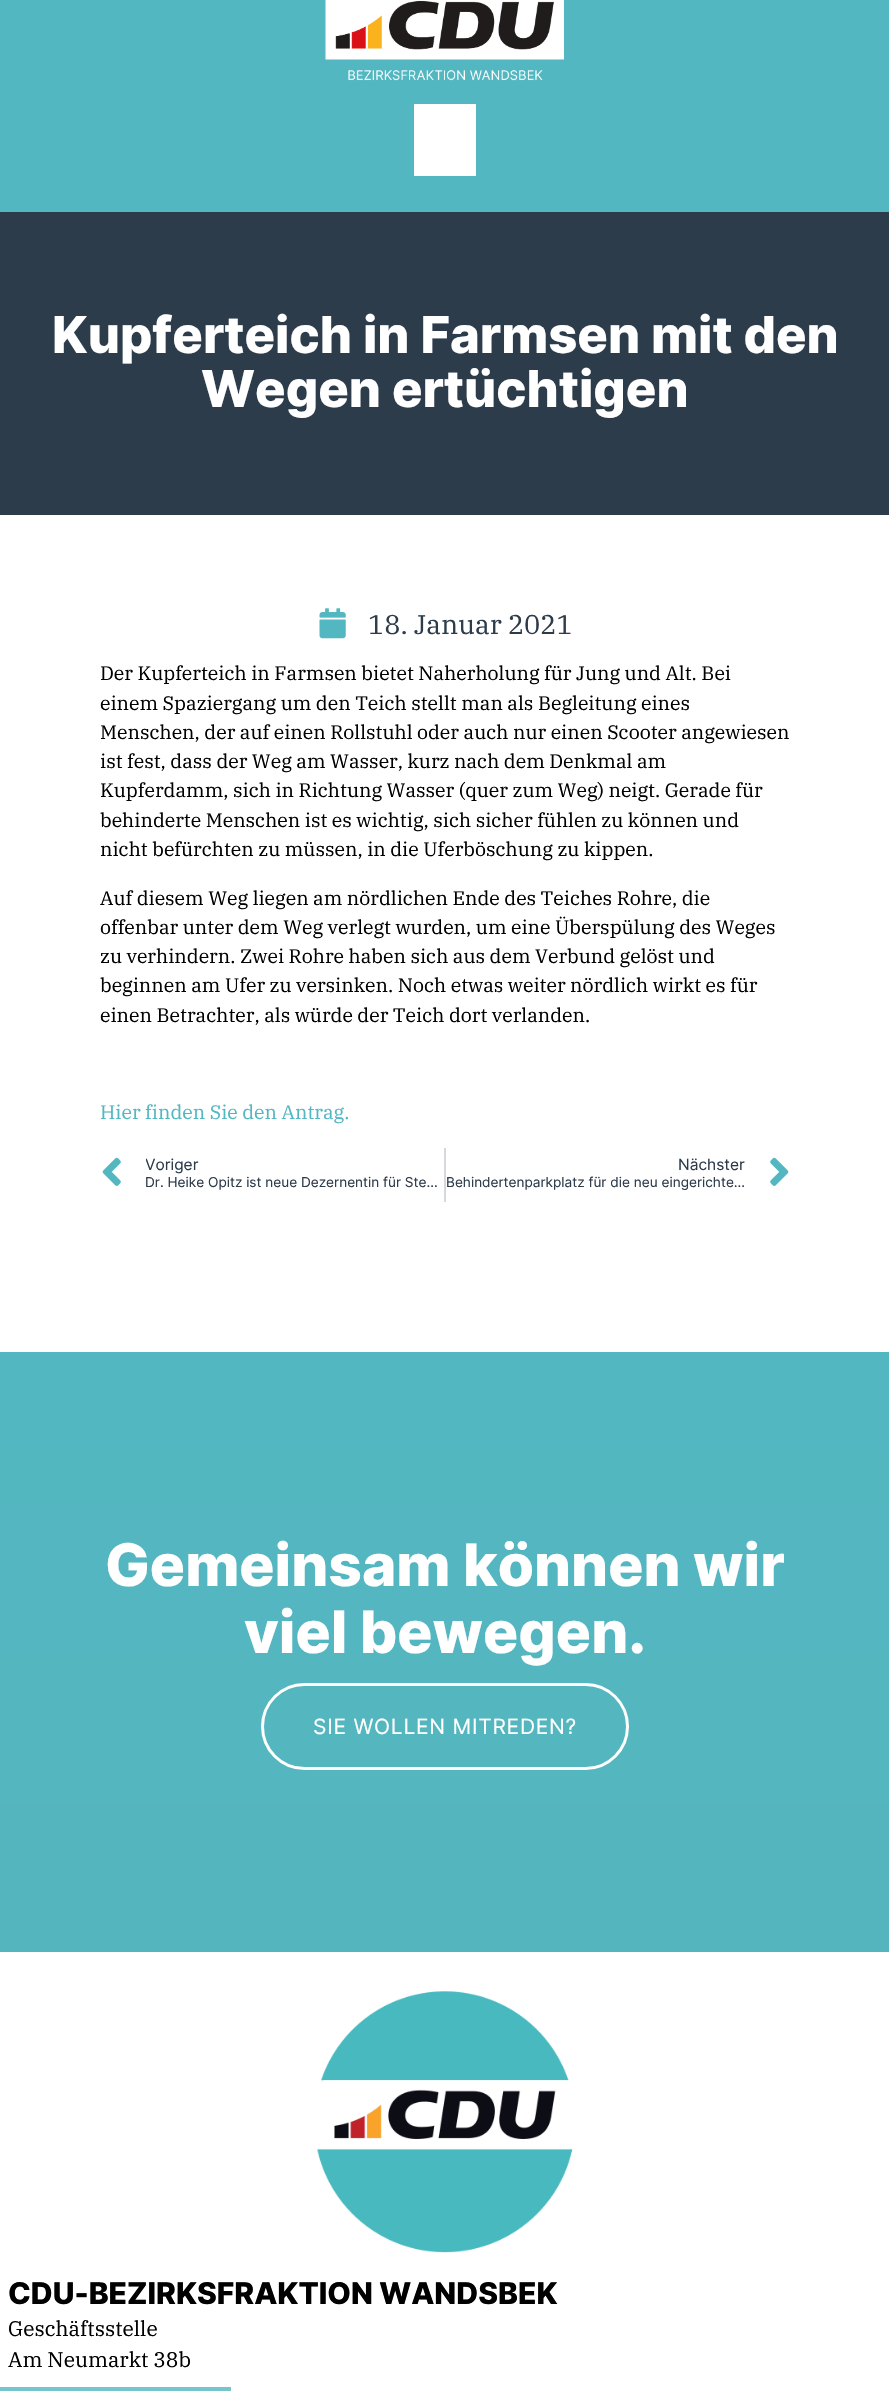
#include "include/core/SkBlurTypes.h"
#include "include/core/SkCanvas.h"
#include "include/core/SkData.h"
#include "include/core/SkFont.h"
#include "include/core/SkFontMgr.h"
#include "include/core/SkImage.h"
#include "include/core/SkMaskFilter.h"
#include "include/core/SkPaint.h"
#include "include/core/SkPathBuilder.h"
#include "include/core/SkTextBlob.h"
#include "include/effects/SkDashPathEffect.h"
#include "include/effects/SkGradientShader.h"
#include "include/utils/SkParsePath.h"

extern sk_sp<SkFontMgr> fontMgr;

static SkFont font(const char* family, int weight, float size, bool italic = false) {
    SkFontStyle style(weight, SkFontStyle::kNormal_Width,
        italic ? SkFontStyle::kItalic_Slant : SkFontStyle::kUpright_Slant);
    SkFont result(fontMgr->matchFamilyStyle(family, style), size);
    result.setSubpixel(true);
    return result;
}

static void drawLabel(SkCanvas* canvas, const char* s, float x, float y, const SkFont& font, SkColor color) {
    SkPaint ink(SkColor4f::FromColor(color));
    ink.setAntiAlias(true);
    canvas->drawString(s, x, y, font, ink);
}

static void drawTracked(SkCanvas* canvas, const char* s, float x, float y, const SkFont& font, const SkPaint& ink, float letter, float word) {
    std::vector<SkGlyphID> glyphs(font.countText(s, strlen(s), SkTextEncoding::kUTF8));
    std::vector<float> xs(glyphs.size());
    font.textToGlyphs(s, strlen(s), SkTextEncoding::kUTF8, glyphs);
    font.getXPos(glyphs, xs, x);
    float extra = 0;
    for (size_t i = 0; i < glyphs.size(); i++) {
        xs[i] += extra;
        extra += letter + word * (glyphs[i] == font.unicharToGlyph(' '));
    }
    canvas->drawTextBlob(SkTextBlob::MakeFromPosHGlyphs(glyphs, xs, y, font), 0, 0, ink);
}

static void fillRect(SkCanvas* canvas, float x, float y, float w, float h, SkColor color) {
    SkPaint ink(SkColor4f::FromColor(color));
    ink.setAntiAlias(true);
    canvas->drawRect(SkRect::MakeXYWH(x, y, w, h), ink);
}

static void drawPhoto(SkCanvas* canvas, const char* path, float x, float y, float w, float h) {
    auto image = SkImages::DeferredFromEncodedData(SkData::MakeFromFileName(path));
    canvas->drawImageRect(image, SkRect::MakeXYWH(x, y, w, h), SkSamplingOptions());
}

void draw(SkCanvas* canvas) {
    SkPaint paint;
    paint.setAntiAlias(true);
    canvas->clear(0xFFFFFFFF);
    fillRect(canvas, 0, 0, 889, 212, 0xFF52B7C1);
    drawPhoto(canvas, "assets/img1.png", 325, 0, 239, 81);
    fillRect(canvas, 414, 104, 62, 72, 0xFFFFFFFF);
    fillRect(canvas, 0, 212, 889, 303, 0xFF2D3C4B);
    SkFont font1 = font("Inter", 800, 50.75f);
    drawLabel(canvas, "Kupferteich in Farmsen mit den", 52, 353, font1, 0xFFFFFFFF);
    drawLabel(canvas, "Wegen ertüchtigen", 201, 407, font1, 0xFFFFFFFF);
    drawPhoto(canvas, "assets/img2.png", 319, 608, 27, 31);
    SkFont font2 = font("IBM Plex Serif", 400, 27);
    drawLabel(canvas, "18. Januar 2021", 368, 634, font2, 0xFF2D3C4B);
    SkFont font3 = font("IBM Plex Serif", 400, 19.5f);
    drawLabel(canvas, "Der Kupferteich in Farmsen bietet Naherholung für Jung und Alt. Bei", 100, 680, font3, 0xFF000000);
    drawLabel(canvas, "einem Spaziergang um den Teich stellt man als Begleitung eines", 100, 710, font3, 0xFF000000);
    drawLabel(canvas, "Menschen, der auf einen Rollstuhl oder auch nur einen Scooter angewiesen", 100, 739, font3, 0xFF000000);
    drawLabel(canvas, "ist fest, dass der Weg am Wasser, kurz nach dem Denkmal am", 100, 768, font3, 0xFF000000);
    drawLabel(canvas, "Kupferdamm, sich in Richtung Wasser (quer zum Weg) neigt. Gerade für", 100, 797, font3, 0xFF000000);
    drawLabel(canvas, "behinderte Menschen ist es wichtig, sich sicher fühlen zu können und", 100, 827, font3, 0xFF000000);
    drawLabel(canvas, "nicht befürchten zu müssen, in die Uferböschung zu kippen.", 100, 856, font3, 0xFF000000);
    drawLabel(canvas, "Auf diesem Weg liegen am nördlichen Ende des Teiches Rohre, die", 100, 905, font3, 0xFF000000);
    drawLabel(canvas, "offenbar unter dem Weg verlegt wurden, um eine Überspülung des Weges", 100, 934, font3, 0xFF000000);
    drawLabel(canvas, "zu verhindern. Zwei Rohre haben sich aus dem Verbund gelöst und", 100, 963, font3, 0xFF000000);
    drawLabel(canvas, "beginnen am Ufer zu versinken. Noch etwas weiter nördlich wirkt es für", 100, 992, font3, 0xFF000000);
    drawLabel(canvas, "einen Betrachter, als würde der Teich dort verlanden.", 100, 1022, font3, 0xFF000000);
    drawLabel(canvas, "Hier finden Sie den Antrag.", 100, 1119, font3, 0xFF52B7C1);
    drawPhoto(canvas, "assets/img3.png", 102, 1157, 19, 29);
    canvas->save();
    canvas->clipRect(SkRect::MakeXYWH(146, 1157, 298, 18));
    SkFont font4 = font("Inter", 400, 15.5f);
    drawLabel(canvas, "Voriger", 145, 1170, font4, 0xFF2D3C4B);
    canvas->restore();
    SkFont font5 = font("Inter", 400, 13.65f);
    drawLabel(canvas, "Dr. Heike Opitz ist neue Dezernentin für Ste…", 145, 1187, font5, 0xFF2D3C4B);
    fillRect(canvas, 444, 1148, 2, 54, 0xFFD5D8DC);
    drawLabel(canvas, "Nächster", 678, 1170, font4, 0xFF2D3C4B);
    drawLabel(canvas, "Behindertenparkplatz für die neu eingerichte…", 446, 1187, font5, 0xFF2D3C4B);
    drawPhoto(canvas, "assets/img4.png", 770, 1157, 19, 29);
    {
        const SkColor colors[] = {0xFF52B7C1, 0xFF55B5BE};
        const float stops[] = {0, 1};
        const SkPoint ends[] = {{445, 1352}, {445, 1952}};
        paint.setShader(SkGradientShader::MakeLinear(ends, colors, stops, 2, SkTileMode::kClamp));
        paint.setAlpha(255);
    }
    canvas->drawRect(SkRect::MakeXYWH(0, 1352, 889, 600), paint);
    SkFont font6 = font("Inter", 800, 58.5f);
    drawLabel(canvas, "Gemeinsam können wir", 105, 1586, font6, 0xFFFFFFFF);
    drawLabel(canvas, "viel bewegen.", 244, 1653, font6, 0xFFFFFFFF);
    paint.setStroke(true);
    paint.setStrokeWidth(3);
    paint.setShader(nullptr);
    paint.setColor(0xFFFFFFFF);
    canvas->drawRoundRect(SkRect::MakeXYWH(262.5f, 1684.5f, 365, 84), 42, 42, paint);
    SkFont font7 = font("Inter", 400, 21);
    paint.setStroke(false);
    drawTracked(canvas, "SIE WOLLEN MITREDEN?", 313, 1734, font7, paint, 0.75f, 0);
    drawPhoto(canvas, "assets/img5.png", 317, 1991, 256, 262);
    SkFont font8 = font("Inter", 800, 30);
    drawLabel(canvas, "CDU-BEZIRKSFRAKTION WANDSBEK", 8, 2304, font8, 0xFF000000);
    SkFont font9 = font("IBM Plex Serif", 400, 21);
    drawLabel(canvas, "Geschäftsstelle", 8, 2336, font9, 0xFF000000);
    drawLabel(canvas, "Am Neumarkt 38b", 8, 2367, font9, 0xFF000000);
    fillRect(canvas, 0, 2387, 231, 4, 0xCC52B7C1);
}
